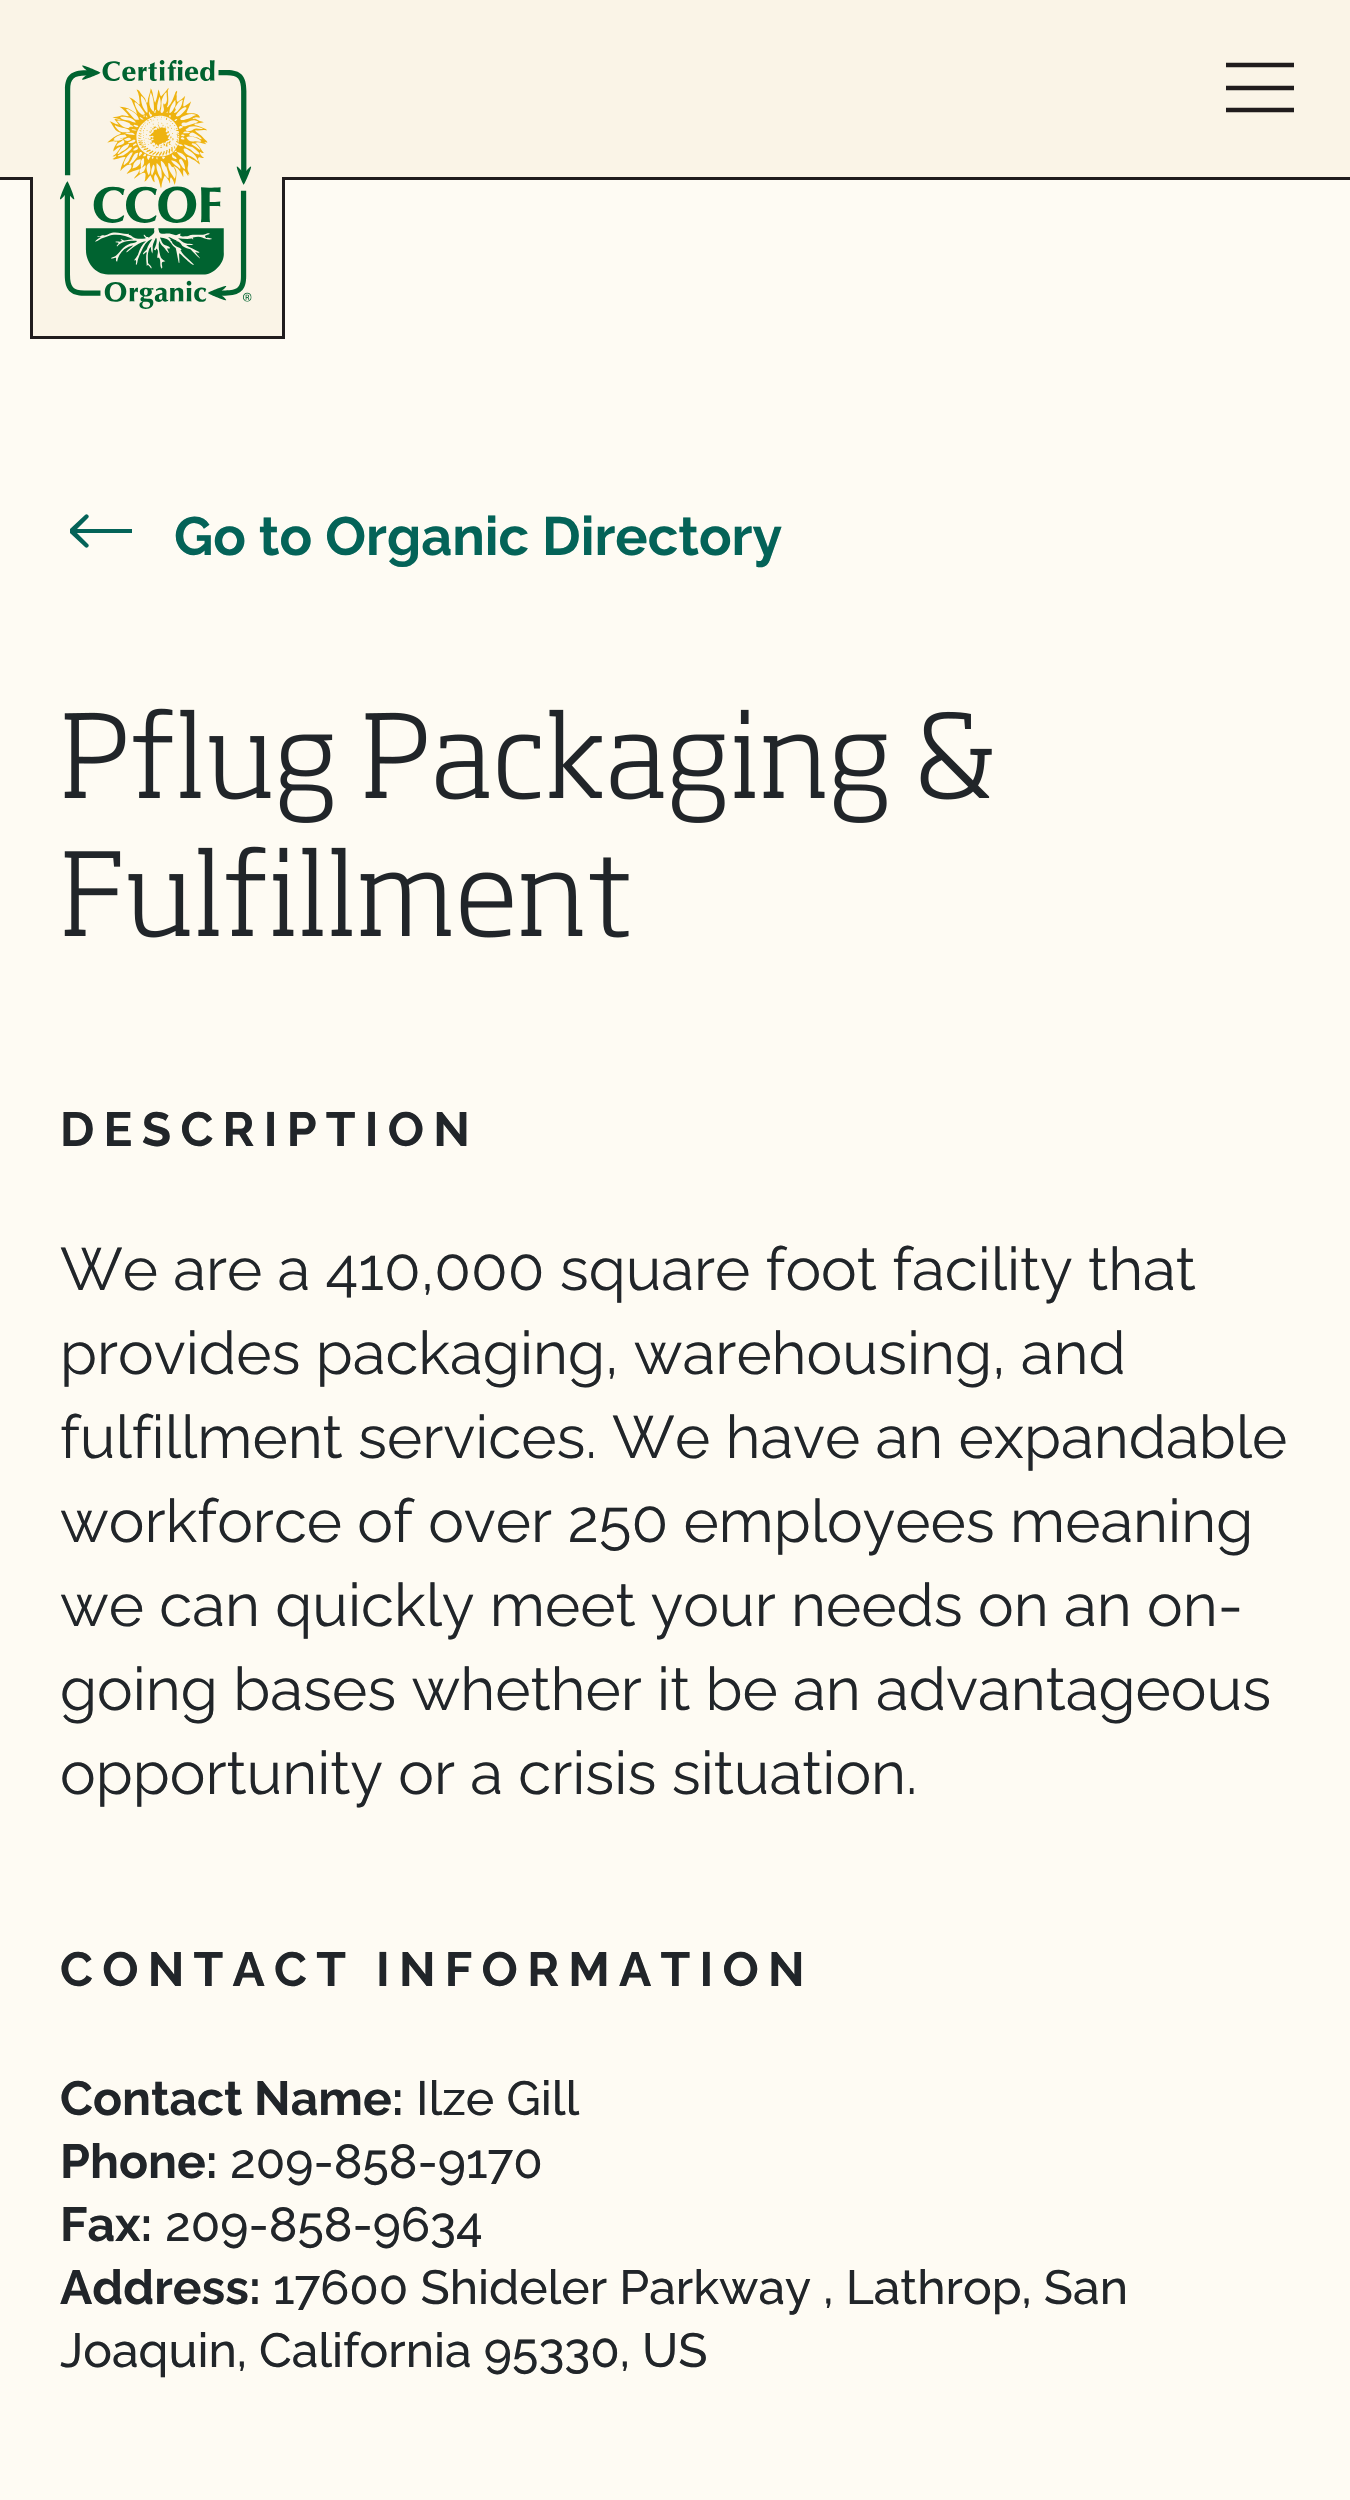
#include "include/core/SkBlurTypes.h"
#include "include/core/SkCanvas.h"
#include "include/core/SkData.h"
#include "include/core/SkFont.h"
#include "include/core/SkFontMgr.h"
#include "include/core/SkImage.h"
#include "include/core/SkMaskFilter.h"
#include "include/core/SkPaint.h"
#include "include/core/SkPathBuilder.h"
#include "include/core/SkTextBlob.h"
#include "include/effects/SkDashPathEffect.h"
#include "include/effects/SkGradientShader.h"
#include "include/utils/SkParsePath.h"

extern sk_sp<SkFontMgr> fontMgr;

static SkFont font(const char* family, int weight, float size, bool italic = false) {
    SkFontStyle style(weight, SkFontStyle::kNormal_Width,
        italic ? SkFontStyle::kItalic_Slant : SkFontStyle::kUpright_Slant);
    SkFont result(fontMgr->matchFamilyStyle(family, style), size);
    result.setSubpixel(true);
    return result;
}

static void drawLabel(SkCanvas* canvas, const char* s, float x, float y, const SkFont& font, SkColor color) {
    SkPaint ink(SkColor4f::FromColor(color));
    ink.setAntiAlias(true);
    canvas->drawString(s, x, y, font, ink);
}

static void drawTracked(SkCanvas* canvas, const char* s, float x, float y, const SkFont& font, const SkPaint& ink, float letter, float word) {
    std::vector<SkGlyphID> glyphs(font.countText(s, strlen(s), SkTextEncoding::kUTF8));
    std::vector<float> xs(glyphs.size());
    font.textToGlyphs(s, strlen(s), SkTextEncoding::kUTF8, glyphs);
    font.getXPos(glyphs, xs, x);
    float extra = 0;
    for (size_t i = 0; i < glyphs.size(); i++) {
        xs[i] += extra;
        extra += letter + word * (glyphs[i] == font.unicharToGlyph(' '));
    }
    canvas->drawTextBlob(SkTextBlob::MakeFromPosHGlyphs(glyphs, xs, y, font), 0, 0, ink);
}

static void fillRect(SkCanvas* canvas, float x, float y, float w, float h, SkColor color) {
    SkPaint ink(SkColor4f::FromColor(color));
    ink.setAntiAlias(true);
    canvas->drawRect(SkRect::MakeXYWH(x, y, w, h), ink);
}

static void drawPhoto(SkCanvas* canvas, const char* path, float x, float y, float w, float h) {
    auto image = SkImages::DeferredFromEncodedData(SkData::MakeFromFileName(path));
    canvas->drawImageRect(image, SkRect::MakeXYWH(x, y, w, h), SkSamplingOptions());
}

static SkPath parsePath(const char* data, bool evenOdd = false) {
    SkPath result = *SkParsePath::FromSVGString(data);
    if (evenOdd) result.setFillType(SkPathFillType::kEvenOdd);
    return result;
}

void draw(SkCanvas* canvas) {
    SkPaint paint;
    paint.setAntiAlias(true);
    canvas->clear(0xFFFEFBF3);
    fillRect(canvas, 0, 0, 1350, 177, 0xFFFAF4E7);
    fillRect(canvas, 0, 177, 1350, 3, 0xFF201C1D);
    fillRect(canvas, 30, 177, 252, 159, 0xFFFAF4E7);
    drawPhoto(canvas, "assets/img1.png", 60, 60, 192, 249);
    fillRect(canvas, 282, 177, 3, 162, 0xFF201C1D);
    fillRect(canvas, 30, 336, 255, 3, 0xFF201C1D);
    fillRect(canvas, 30, 177, 3, 162, 0xFF201C1D);
    paint.setStroke(true);
    paint.setStrokeWidth(4.5f);
    paint.setColor(0xFF201C1D);
    canvas->drawPath(parsePath("M1226 65H1294M1226 88H1294M1226 110H1294"), paint);
    paint.setStroke(false);
    paint.setColor(0xFF046358);
    canvas->drawPath(parsePath("M70 529C70 530 70 532 70 533L85 547C86 548 87 548 88 547C89 546 89 545 88 544L75 531L88 518C89 517 89 516 88 515C87 514 86 514 85 515ZM132 529H72V533H132Z"), paint);
    SkFont font1 = font("Raleway", 700, 54);
    drawLabel(canvas, "Go to Organic Directory", 174, 555, font1, 0xFF046358);
    drawPhoto(canvas, "assets/img2.png", 64, 708, 928, 115);
    drawPhoto(canvas, "assets/img3.png", 64, 846, 565, 92);
    SkFont font2 = font("Raleway", 700, 48);
    paint.setColor(0xFF212529);
    drawTracked(canvas, "DESCRIPTION", 60, 1146, font2, paint, 9.25f, 0);
    SkFont font3 = font("Raleway", 400, 60);
    drawLabel(canvas, "We are a 410,000 square foot facility that", 60, 1290, font3, 0xFF212529);
    drawLabel(canvas, "provides packaging, warehousing, and", 60, 1374, font3, 0xFF212529);
    drawLabel(canvas, "fulfillment services. We have an expandable", 60, 1458, font3, 0xFF212529);
    drawLabel(canvas, "workforce of over 250 employees meaning", 60, 1542, font3, 0xFF212529);
    drawLabel(canvas, "we can quickly meet your needs on an on-", 60, 1626, font3, 0xFF212529);
    drawLabel(canvas, "going bases whether it be an advantageous", 60, 1710, font3, 0xFF212529);
    drawLabel(canvas, "opportunity or a crisis situation.", 60, 1794, font3, 0xFF212529);
    drawTracked(canvas, "CONTACT INFORMATION", 60, 1986, font2, paint, 9.25f, 0);
    drawLabel(canvas, "Contact Name:", 60, 2115, font2, 0xFF212529);
    SkFont font4 = font("Raleway", 500, 48);
    drawLabel(canvas, "Ilze Gill", 416, 2115, font4, 0xFF212529);
    drawLabel(canvas, "Phone:", 60, 2178, font2, 0xFF212529);
    drawLabel(canvas, "209-858-9170", 230, 2178, font4, 0xFF212529);
    drawLabel(canvas, "Fax:", 60, 2241, font2, 0xFF212529);
    drawLabel(canvas, "209-858-9634", 165, 2241, font4, 0xFF212529);
    drawLabel(canvas, "Address:", 60, 2304, font2, 0xFF212529);
    drawLabel(canvas, "17600 Shideler Parkway , Lathrop, San", 273, 2304, font4, 0xFF212529);
    drawLabel(canvas, "Joaquin, California 95330, US", 60, 2367, font4, 0xFF212529);
}
